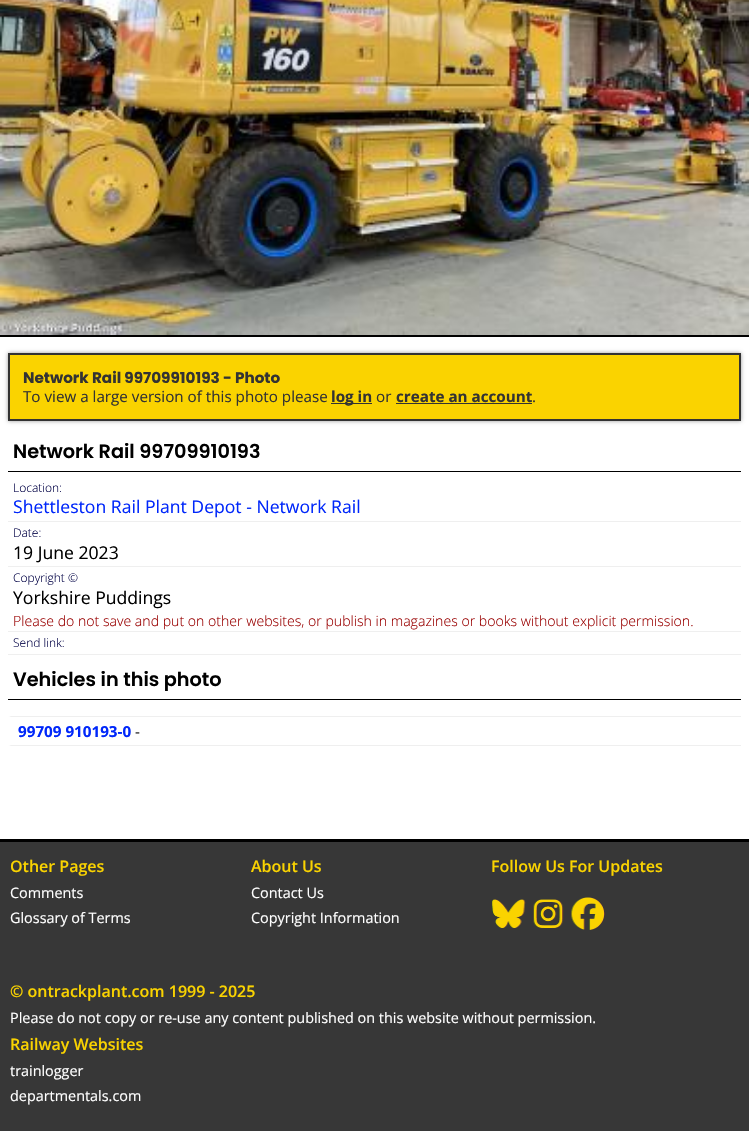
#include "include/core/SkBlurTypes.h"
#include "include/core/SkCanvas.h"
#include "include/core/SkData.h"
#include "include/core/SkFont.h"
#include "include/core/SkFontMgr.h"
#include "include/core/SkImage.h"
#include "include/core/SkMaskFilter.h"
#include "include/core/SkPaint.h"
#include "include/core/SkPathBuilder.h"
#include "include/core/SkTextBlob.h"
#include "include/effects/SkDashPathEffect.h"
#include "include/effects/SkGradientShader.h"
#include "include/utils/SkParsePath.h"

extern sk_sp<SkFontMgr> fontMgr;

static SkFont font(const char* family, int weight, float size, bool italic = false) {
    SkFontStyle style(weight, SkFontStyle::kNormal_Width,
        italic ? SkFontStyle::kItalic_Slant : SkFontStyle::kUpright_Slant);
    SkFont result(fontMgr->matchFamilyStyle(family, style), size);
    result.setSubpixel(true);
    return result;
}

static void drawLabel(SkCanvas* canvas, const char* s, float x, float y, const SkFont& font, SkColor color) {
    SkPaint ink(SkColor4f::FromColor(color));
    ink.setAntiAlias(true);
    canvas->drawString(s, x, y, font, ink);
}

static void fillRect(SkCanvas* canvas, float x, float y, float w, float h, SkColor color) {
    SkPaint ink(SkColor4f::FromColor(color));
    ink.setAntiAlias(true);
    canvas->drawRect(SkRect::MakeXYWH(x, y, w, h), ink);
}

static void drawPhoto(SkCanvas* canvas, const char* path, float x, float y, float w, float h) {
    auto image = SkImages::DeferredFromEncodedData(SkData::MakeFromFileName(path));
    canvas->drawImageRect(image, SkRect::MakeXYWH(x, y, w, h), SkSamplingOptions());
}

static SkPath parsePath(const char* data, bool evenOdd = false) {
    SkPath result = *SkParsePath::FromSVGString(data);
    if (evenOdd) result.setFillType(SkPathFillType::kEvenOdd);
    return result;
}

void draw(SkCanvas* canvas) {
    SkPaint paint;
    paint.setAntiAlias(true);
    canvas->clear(0xFFFFFFFF);
    fillRect(canvas, 0, 335, 749, 2, 0xFF000000);
    drawPhoto(canvas, "assets/img1.png", 0, 0, 749, 335);
    paint.setColor(0xFF999999);
    paint.setMaskFilter(SkMaskFilter::MakeBlur(kNormal_SkBlurStyle, 2));
    canvas->drawRect(SkRect::MakeXYWH(8, 353, 733, 68), paint);
    paint.setMaskFilter(nullptr);
    paint.setColor(0xFFFAD300);
    canvas->drawRect(SkRect::MakeXYWH(9, 354, 731, 66), paint);
    paint.setStroke(true);
    paint.setStrokeWidth(2);
    paint.setColor(0xFF333333);
    canvas->drawRect(SkRect::MakeXYWH(9, 354, 731, 66), paint);
    SkFont font1 = font("Poppins", 700, 15.2f);
    drawLabel(canvas, "Network Rail 99709910193 - Photo", 23, 383, font1, 0xFF333333);
    SkFont font2 = font("Open Sans", 400, 15.2f);
    drawLabel(canvas, "To view a large version of this photo please", 23, 402, font2, 0xFF333333);
    fillRect(canvas, 331, 403, 41, 1, 0xFF333333);
    SkFont font3 = font("Open Sans", 700, 15.2f);
    drawLabel(canvas, "log in", 331, 402, font3, 0xFF333333);
    drawLabel(canvas, "or", 376, 402, font2, 0xFF333333);
    drawLabel(canvas, "create an account", 396, 402, font3, 0xFF333333);
    fillRect(canvas, 396, 403, 136, 1, 0xFF333333);
    drawLabel(canvas, ".", 532, 402, font2, 0xFF333333);
    fillRect(canvas, 8, 471, 733, 1, 0xFF000000);
    SkFont font4 = font("Poppins", 600, 19.25f);
    drawLabel(canvas, "Network Rail 99709910193", 13, 458, font4, 0xFF000000);
    fillRect(canvas, 8, 521, 733, 1, 0xFFEFEFEF);
    SkFont font5 = font("Open Sans", 300, 12);
    drawLabel(canvas, "Location:", 13, 492, font5, 0xFF000044);
    SkFont font6 = font("Open Sans", 400, 17.6f);
    drawLabel(canvas, "Shettleston Rail Plant Depot - Network Rail", 13, 513, font6, 0xFF0027FA);
    fillRect(canvas, 8, 566, 733, 1, 0xFFEFEFEF);
    drawLabel(canvas, "Date:", 13, 537, font5, 0xFF000044);
    drawLabel(canvas, "19 June 2023", 13, 559, font6, 0xFF000000);
    fillRect(canvas, 8, 631, 733, 1, 0xFFEFEFEF);
    drawLabel(canvas, "Copyright ©", 13, 582, font5, 0xFF000044);
    drawLabel(canvas, "Yorkshire Puddings", 13, 604, font6, 0xFF000000);
    SkFont font7 = font("Open Sans", 300, 14.1f);
    drawLabel(canvas, "Please do not save and put on other websites, or publish in magazines or books without explicit permission.", 13, 626, font7, 0xFF990000);
    fillRect(canvas, 8, 654, 733, 1, 0xFFEFEFEF);
    drawLabel(canvas, "Send link:", 13, 647, font5, 0xFF000044);
    fillRect(canvas, 8, 699, 733, 1, 0xFF000000);
    drawLabel(canvas, "Vehicles in this photo", 13, 686, font4, 0xFF000000);
    paint.setStroke(false);
    paint.setColor(0xFFEFEFEF);
    canvas->drawPath(parsePath("M8 716H741V717H11Z"), paint);
    canvas->drawPath(parsePath("M741 746H8L11 745H741Z"), paint);
    paint.setColor(0xFFFFFFFF);
    canvas->drawPath(parsePath("M8 746V716L11 717V745Z"), paint);
    drawLabel(canvas, "99709 910193-0", 18, 737, font3, 0xFF0027FA);
    drawLabel(canvas, "-", 135, 737, font2, 0xFF222222);
    fillRect(canvas, 0, 842, 749, 289, 0xFF373737);
    fillRect(canvas, 0, 839, 749, 3, 0xFF000000);
    SkFont font8 = font("Open Sans", 600, 16);
    drawLabel(canvas, "Other Pages", 10, 872, font8, 0xFFFAD300);
    SkFont font9 = font("Open Sans", 400, 14.4f);
    drawLabel(canvas, "Comments", 10, 898, font9, 0xFFFFFFFF);
    drawLabel(canvas, "Glossary of Terms", 10, 923, font9, 0xFFFFFFFF);
    drawLabel(canvas, "About Us", 251, 872, font8, 0xFFFAD300);
    drawLabel(canvas, "Contact Us", 251, 898, font9, 0xFFFFFFFF);
    drawLabel(canvas, "Copyright Information", 251, 923, font9, 0xFFFFFFFF);
    drawLabel(canvas, "Follow Us For Updates", 491, 872, font8, 0xFFFAD300);
    drawPhoto(canvas, "assets/img2.png", 492, 899, 34, 29);
    drawPhoto(canvas, "assets/img3.png", 533, 899, 31, 29);
    drawPhoto(canvas, "assets/img4.png", 571, 897, 34, 33);
    drawLabel(canvas, "© ontrackplant.com 1999 - 2025", 10, 997, font8, 0xFFFAD300);
    drawLabel(canvas, "Please do not copy or re-use any content published on this website without permission.", 10, 1023, font9, 0xFFFFFFFF);
    drawLabel(canvas, "Railway Websites", 10, 1050, font8, 0xFFFAD300);
    drawLabel(canvas, "trainlogger", 10, 1076, font9, 0xFFFFFFFF);
    drawLabel(canvas, "departmentals.com", 10, 1101, font9, 0xFFFFFFFF);
}
